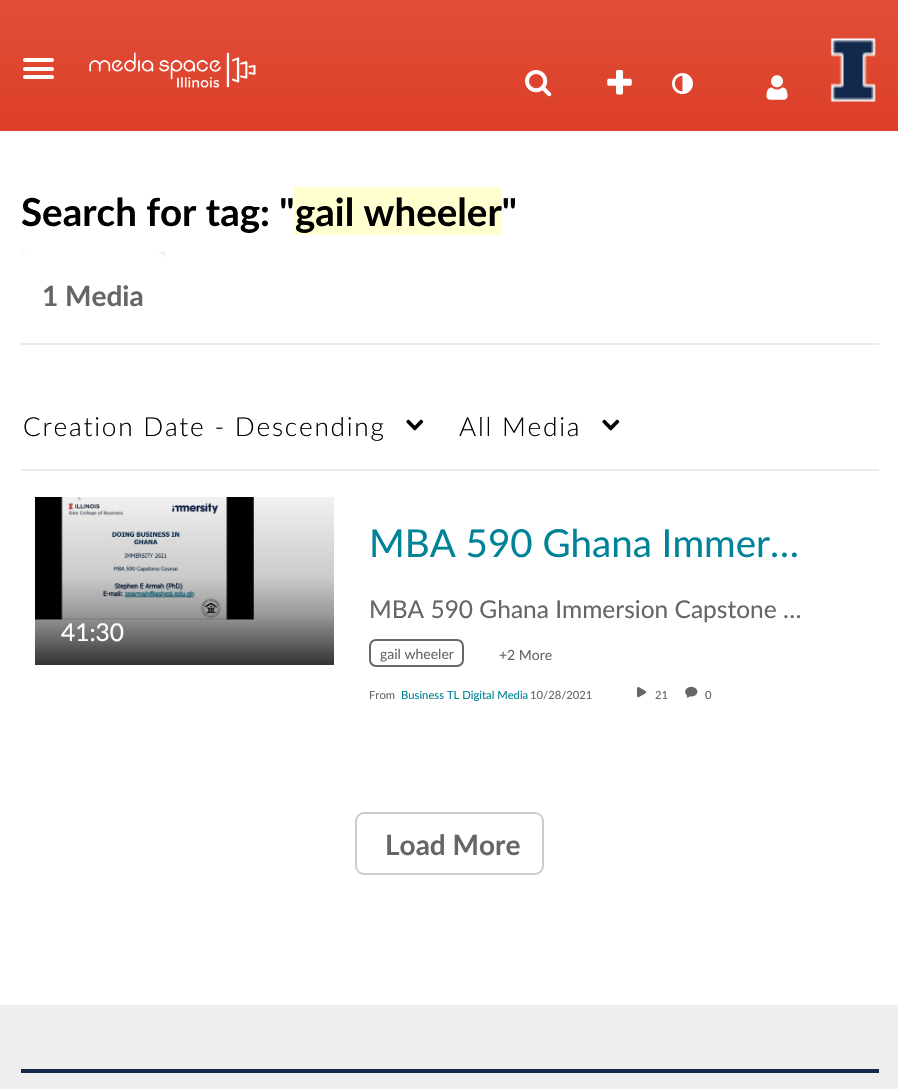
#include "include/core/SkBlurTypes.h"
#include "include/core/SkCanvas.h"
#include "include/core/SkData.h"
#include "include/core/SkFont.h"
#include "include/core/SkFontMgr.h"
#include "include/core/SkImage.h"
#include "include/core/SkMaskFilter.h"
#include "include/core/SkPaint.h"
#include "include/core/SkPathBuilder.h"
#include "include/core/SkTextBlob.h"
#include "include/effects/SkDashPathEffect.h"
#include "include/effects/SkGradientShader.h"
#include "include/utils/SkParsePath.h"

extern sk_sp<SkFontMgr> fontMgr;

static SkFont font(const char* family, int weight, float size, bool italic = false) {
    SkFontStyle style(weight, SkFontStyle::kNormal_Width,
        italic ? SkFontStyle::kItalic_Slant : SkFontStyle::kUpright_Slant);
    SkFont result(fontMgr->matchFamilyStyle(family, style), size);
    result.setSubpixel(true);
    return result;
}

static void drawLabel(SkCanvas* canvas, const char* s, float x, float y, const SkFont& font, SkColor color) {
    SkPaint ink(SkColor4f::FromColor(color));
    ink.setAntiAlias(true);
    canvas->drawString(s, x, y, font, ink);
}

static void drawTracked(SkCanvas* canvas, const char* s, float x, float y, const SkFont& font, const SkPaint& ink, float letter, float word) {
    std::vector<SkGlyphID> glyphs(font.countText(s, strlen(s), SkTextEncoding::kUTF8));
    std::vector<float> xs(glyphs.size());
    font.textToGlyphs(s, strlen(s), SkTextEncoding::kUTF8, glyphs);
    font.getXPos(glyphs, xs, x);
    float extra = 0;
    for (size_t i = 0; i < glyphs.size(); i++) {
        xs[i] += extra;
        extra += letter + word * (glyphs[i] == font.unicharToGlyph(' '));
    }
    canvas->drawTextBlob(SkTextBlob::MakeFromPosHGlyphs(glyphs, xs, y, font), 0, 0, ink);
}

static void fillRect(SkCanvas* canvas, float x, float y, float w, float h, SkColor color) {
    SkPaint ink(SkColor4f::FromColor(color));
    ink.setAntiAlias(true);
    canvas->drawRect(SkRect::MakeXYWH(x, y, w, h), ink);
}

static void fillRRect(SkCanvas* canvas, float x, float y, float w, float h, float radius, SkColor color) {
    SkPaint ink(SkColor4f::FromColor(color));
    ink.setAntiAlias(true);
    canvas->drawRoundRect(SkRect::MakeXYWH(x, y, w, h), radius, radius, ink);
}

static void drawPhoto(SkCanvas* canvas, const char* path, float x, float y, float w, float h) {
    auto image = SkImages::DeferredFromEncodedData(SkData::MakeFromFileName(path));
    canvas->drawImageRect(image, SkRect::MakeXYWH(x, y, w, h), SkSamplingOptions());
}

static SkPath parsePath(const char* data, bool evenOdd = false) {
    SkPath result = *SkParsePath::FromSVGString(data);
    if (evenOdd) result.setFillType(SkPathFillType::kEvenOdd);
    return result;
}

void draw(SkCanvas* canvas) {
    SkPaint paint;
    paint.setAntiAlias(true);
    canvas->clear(0xFFFFFFFF);
    fillRect(canvas, 0, 1005, 898, 84, 0xFFEEEEEE);
    {
        const SkColor colors[] = {0xFFE04E39, 0xFFDD3F28};
        const float stops[] = {0, 1};
        const SkPoint ends[] = {{432, 0}, {432, 131}};
        paint.setShader(SkGradientShader::MakeLinear(ends, colors, stops, 2, SkTileMode::kClamp));
        paint.setAlpha(255);
    }
    canvas->drawRect(SkRect::MakeXYWH(0, 0, 898, 131), paint);
    drawPhoto(canvas, "assets/img1.png", 830, 38, 46, 64);
    fillRect(canvas, 21, 1069, 858, 4, 0xFF13294B);
    fillRRect(canvas, 23, 58, 31, 4, 2, 0xFFFFFFFF);
    fillRRect(canvas, 23, 67, 31, 4, 2, 0xFFFFFFFF);
    fillRRect(canvas, 23, 75, 31, 4, 2, 0xFFFFFFFF);
    drawPhoto(canvas, "assets/img2.png", 89, 52, 167, 36);
    drawPhoto(canvas, "assets/img3.png", 525, 70, 27, 27);
    drawPhoto(canvas, "assets/img4.png", 607, 70, 25, 25);
    drawPhoto(canvas, "assets/img5.png", 672, 73, 21, 22);
    drawPhoto(canvas, "assets/img6.png", 766, 75, 22, 25);
    SkFont font1 = font("Lato", 700, 38.5f);
    drawLabel(canvas, "Search for tag: \"", 21, 226, font1, 0xFF000000);
    fillRect(canvas, 294, 187, 207, 48, 0xFFFFFFCF);
    drawLabel(canvas, "gail wheeler\"", 295, 226, font1, 0xFF000000);
    fillRect(canvas, 21, 343, 858, 2, 0xFFEBEBEB);
    canvas->save();
    canvas->clipRect(SkRect::MakeXYWH(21, 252, 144, 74));
    canvas->clipPath(parsePath("M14 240H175V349H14ZM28 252H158C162 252 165 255 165 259V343H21V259C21 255 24 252 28 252Z", true), true);
    paint.setShader(nullptr);
    paint.setColor(0x1F000000);
    paint.setMaskFilter(SkMaskFilter::MakeBlur(kNormal_SkBlurStyle, 2.5f));
    canvas->drawRoundRect(SkRect::MakeXYWH(23, 249, 143, 91), 7, 7, paint);
    paint.setMaskFilter(nullptr);
    canvas->restore();
    SkFont font2 = font("Lato", 700, 28);
    drawLabel(canvas, "1 Media", 42, 306, font2, 0xFF666666);
    SkFont font3 = font("Lato", 300, 26.25f);
    paint.setColor(0xFF000000);
    drawTracked(canvas, "Creation Date - Descending", 23, 436, font3, paint, 1.75f, 0);
    drawPhoto(canvas, "assets/img7.png", 406, 419, 18, 12);
    drawTracked(canvas, "All Media", 459, 436, font3, paint, 1.75f, 0);
    drawPhoto(canvas, "assets/img7.png", 602, 419, 18, 12);
    drawPhoto(canvas, "assets/img8.png", 35, 497, 219, 123);
    {
        const SkColor colors[] = {0xCC000000, 0x66000000, 0x33000000, 0x26000000, 0x0D000000};
        const float stops[] = {0, 0.3f, 0.53f, 0.71f, 1};
        const SkPoint ends[] = {{185, 665}, {185, 497}};
        paint.setShader(SkGradientShader::MakeLinear(ends, colors, stops, 5, SkTileMode::kClamp));
        paint.setAlpha(255);
    }
    canvas->drawRect(SkRect::MakeXYWH(35, 497, 299, 168), paint);
    SkFont font4 = font("Lato", 400, 24.5f);
    drawLabel(canvas, "41:30", 61, 641, font4, 0xFFFFFFFF);
    fillRect(canvas, 21, 469, 858, 2, 0xFFEBEBEB);
    SkFont font5 = font("Lato", 400, 38.5f);
    drawLabel(canvas, "MBA 590 Ghana Immer…", 369, 557, font5, 0xFF008297);
    drawLabel(canvas, "MBA 590 Ghana Immersion Capstone …", 369, 618, font4, 0xFF666666);
    paint.setStroke(true);
    paint.setStrokeWidth(2);
    paint.setShader(nullptr);
    paint.setColor(0xFF666666);
    canvas->drawRoundRect(SkRect::MakeXYWH(370, 640, 93, 26), 6, 6, paint);
    SkFont font6 = font("Lato", 400, 14);
    drawLabel(canvas, "gail wheeler", 380, 659, font6, 0xFF666666);
    drawLabel(canvas, "+2 More", 499, 660, font6, 0xFF666666);
    SkFont font7 = font("Lato", 400, 11.25f);
    drawLabel(canvas, "From", 369, 699, font7, 0xFF666666);
    drawLabel(canvas, "Business TL Digital Media", 401, 699, font7, 0xFF008297);
    drawLabel(canvas, "10/28/2021", 530, 699, font7, 0xFF666666);
    drawPhoto(canvas, "assets/img9.png", 637, 687, 10, 11);
    drawLabel(canvas, "21", 655, 699, font7, 0xFF666666);
    drawPhoto(canvas, "assets/img10.png", 685, 686, 13, 12);
    drawLabel(canvas, "0", 705, 699, font7, 0xFF666666);
    paint.setColor(0xFFCCCCCC);
    canvas->drawRoundRect(SkRect::MakeXYWH(356, 813, 187, 61), 8, 8, paint);
    drawLabel(canvas, "Load More", 385, 855, font2, 0xFF666666);
}
